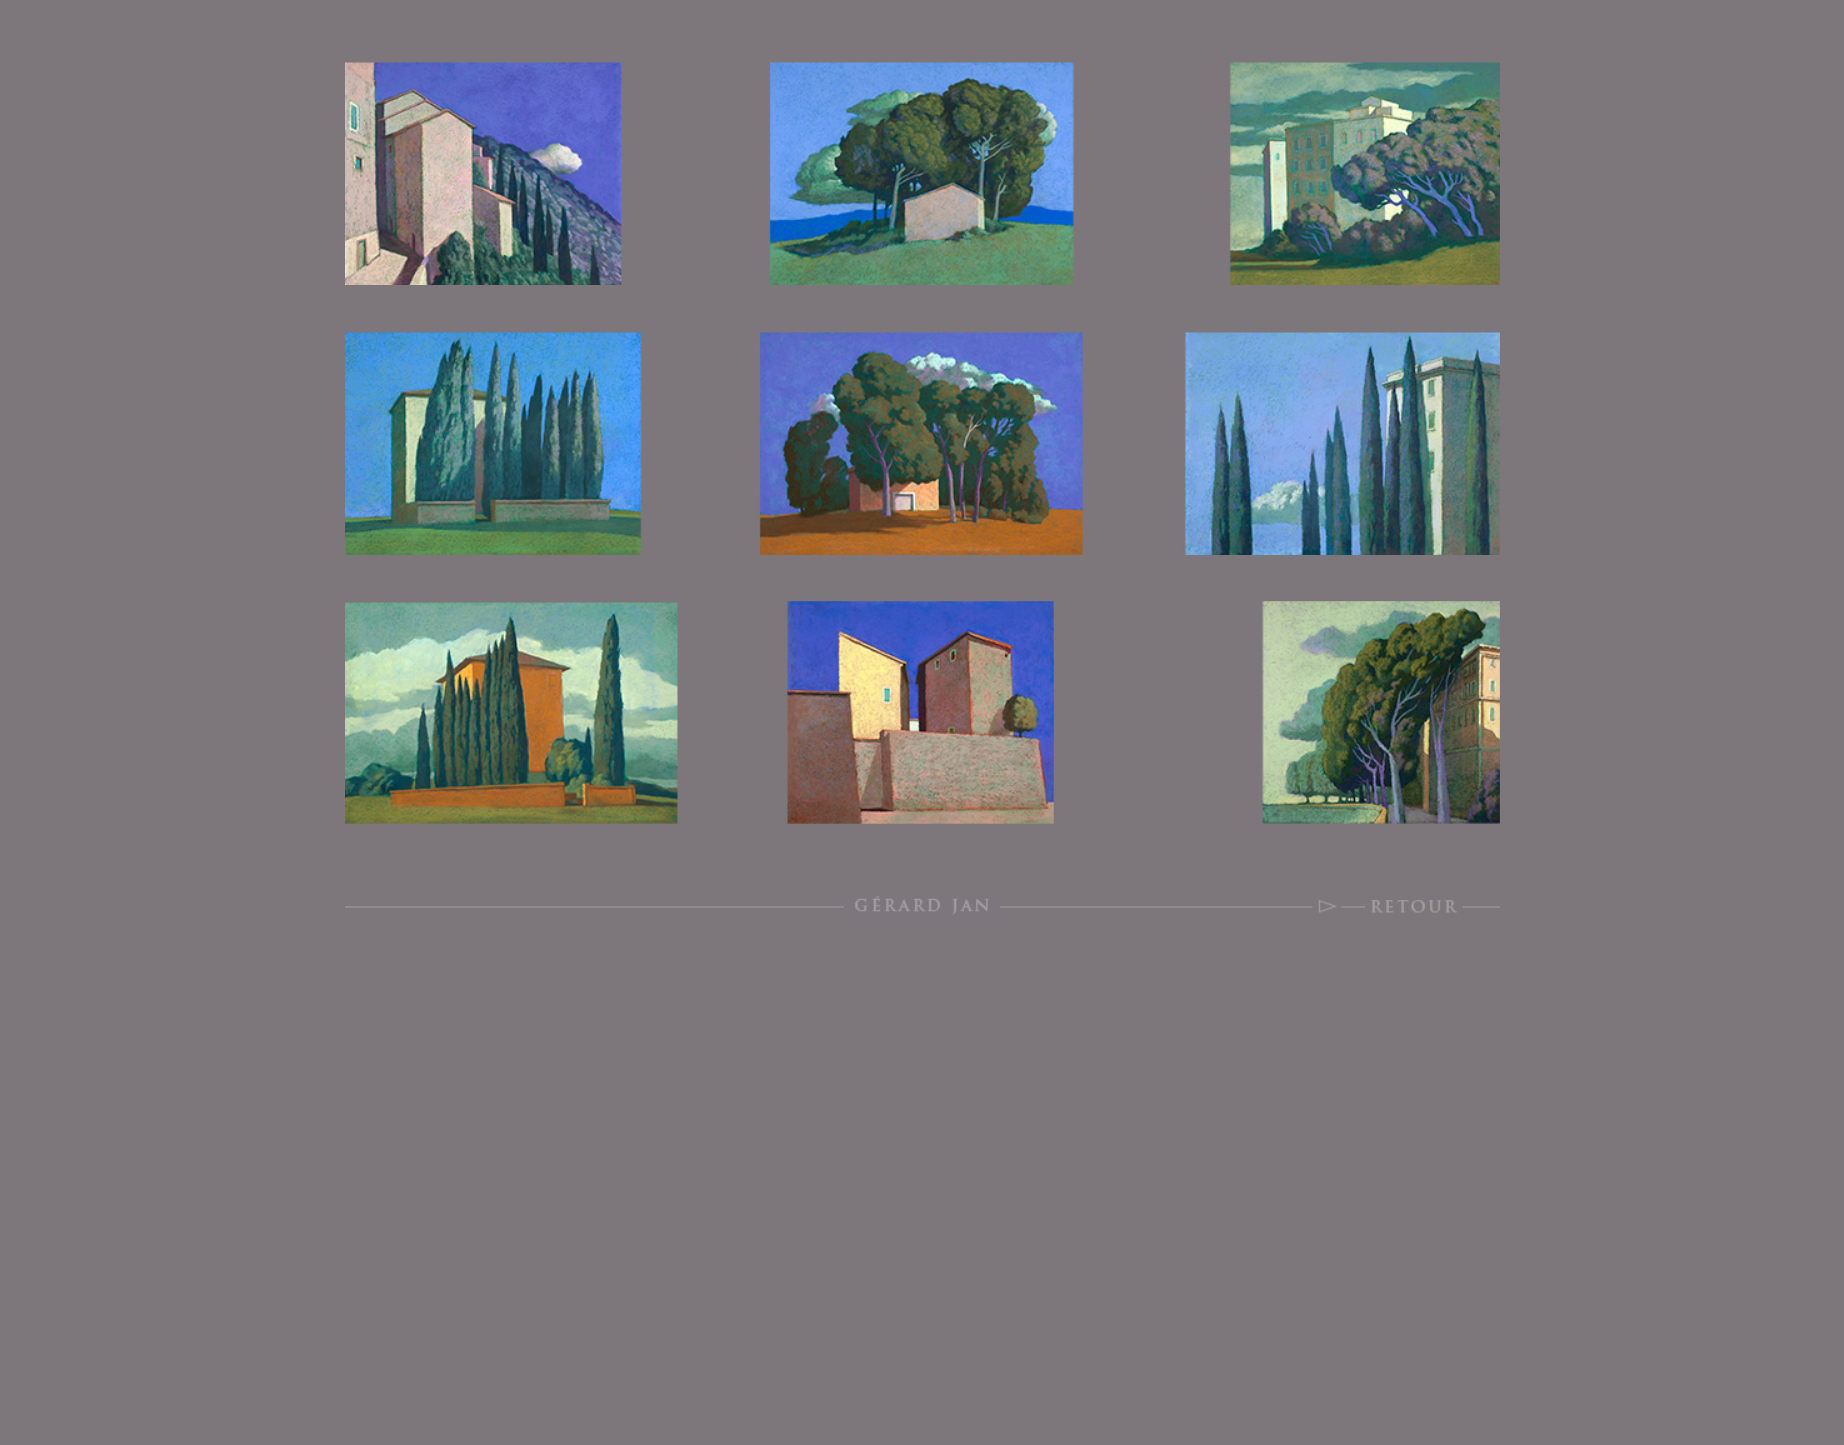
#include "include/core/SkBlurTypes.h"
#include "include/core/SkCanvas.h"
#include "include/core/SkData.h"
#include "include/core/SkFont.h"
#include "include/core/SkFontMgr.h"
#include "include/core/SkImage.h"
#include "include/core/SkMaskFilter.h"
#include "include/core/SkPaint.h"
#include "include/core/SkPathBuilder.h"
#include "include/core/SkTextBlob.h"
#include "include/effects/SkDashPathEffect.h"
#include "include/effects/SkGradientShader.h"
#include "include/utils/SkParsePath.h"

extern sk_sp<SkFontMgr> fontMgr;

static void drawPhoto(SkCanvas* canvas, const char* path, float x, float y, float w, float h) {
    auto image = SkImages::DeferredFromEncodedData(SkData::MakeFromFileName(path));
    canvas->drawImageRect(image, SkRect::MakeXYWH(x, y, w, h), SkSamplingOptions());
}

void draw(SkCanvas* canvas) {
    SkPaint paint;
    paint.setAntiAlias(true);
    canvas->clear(0xFF7D777C);
    drawPhoto(canvas, "assets/img1.png", 345, 62, 280, 223);
    drawPhoto(canvas, "assets/img2.png", 765, 62, 310, 223);
    drawPhoto(canvas, "assets/img3.png", 1226, 62, 274, 223);
    drawPhoto(canvas, "assets/img4.png", 345, 332, 300, 223);
    drawPhoto(canvas, "assets/img5.png", 755, 332, 330, 223);
    drawPhoto(canvas, "assets/img6.png", 1177, 332, 323, 223);
    drawPhoto(canvas, "assets/img7.png", 345, 601, 333, 223);
    drawPhoto(canvas, "assets/img8.png", 785, 601, 270, 223);
    drawPhoto(canvas, "assets/img9.png", 1256, 601, 244, 223);
    drawPhoto(canvas, "assets/img13.png", 345, 906, 1155, 2);
    drawPhoto(canvas, "assets/img10.png", 843, 896, 157, 19);
    drawPhoto(canvas, "assets/img11.png", 1312, 900, 30, 13);
    drawPhoto(canvas, "assets/img12.png", 1365, 900, 98, 13);
}
